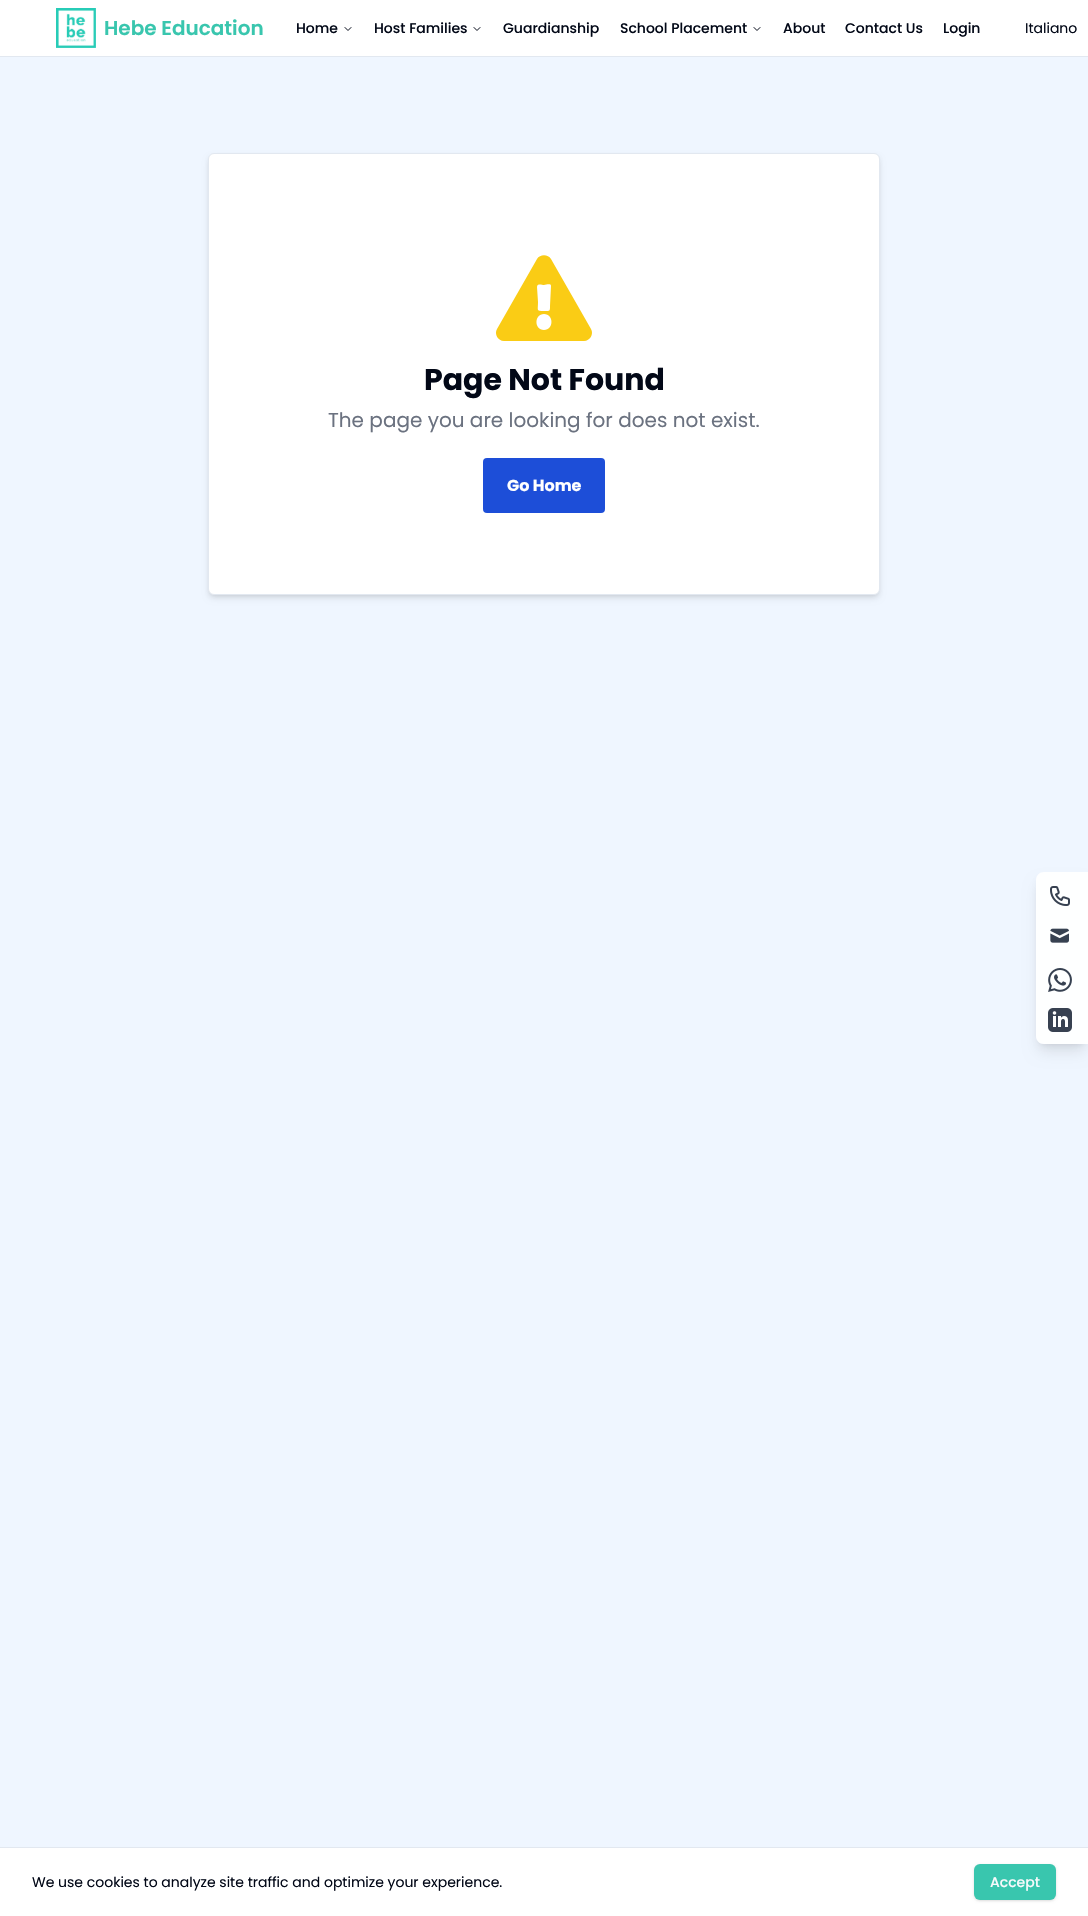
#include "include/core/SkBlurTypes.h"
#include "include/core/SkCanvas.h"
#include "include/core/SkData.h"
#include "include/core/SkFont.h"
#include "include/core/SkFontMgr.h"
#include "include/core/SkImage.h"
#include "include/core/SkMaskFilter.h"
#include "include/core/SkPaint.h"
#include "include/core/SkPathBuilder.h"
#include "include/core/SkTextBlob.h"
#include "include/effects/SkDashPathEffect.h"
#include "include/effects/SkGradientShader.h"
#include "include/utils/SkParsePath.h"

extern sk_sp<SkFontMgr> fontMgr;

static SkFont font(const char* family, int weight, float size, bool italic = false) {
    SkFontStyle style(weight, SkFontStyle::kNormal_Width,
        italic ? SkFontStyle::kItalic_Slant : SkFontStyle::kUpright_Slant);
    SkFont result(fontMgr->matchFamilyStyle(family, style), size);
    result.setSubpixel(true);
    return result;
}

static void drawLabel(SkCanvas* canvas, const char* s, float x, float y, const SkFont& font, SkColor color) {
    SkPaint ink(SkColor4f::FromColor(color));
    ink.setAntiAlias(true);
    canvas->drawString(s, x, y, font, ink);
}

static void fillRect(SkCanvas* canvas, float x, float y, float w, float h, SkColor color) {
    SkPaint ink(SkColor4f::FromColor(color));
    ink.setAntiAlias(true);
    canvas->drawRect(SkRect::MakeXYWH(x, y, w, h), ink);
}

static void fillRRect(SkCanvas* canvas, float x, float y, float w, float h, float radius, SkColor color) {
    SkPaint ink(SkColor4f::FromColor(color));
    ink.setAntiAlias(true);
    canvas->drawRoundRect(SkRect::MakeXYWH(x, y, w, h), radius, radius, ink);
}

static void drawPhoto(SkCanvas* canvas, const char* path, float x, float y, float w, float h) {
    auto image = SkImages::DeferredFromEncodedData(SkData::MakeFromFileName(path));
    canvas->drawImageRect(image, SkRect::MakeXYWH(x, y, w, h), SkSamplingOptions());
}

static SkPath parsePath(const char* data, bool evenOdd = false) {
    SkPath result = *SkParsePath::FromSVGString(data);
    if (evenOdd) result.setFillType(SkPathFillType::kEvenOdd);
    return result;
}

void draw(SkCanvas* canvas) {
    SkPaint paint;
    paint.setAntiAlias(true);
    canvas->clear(0xFFFFFFFF);
    fillRect(canvas, 0, 56, 1088, 1, 0xFFE2E8F0);
    drawPhoto(canvas, "assets/img1.png", 56, 8, 40, 40);
    SkFont font1 = font("Poppins", 600, 20);
    drawLabel(canvas, "Hebe Education", 104, 35, font1, 0xFF39C6AE);
    SkFont font2 = font("Poppins", 500, 14);
    drawLabel(canvas, "Home", 296, 33, font2, 0xFF020817);
    paint.setStroke(true);
    paint.setStrokeWidth(1);
    paint.setStrokeCap(SkPaint::kRound_Cap);
    paint.setStrokeJoin(SkPaint::kRound_Join);
    paint.setColor(0xFF020817);
    canvas->drawPath(parsePath("M345 27.5L348 30.5L351 27.5"), paint);
    drawLabel(canvas, "Host Families", 374, 33, font2, 0xFF020817);
    canvas->drawPath(parsePath("M474 27.5L477 30.5L480 27.5"), paint);
    drawLabel(canvas, "Guardianship", 503, 33, font2, 0xFF020817);
    drawLabel(canvas, "School Placement", 620, 33, font2, 0xFF020817);
    canvas->drawPath(parsePath("M754 27.5L757 30.5L760 27.5"), paint);
    drawLabel(canvas, "About", 783, 33, font2, 0xFF020817);
    drawLabel(canvas, "Contact Us", 845, 33, font2, 0xFF020817);
    drawLabel(canvas, "Login", 943, 33, font2, 0xFF020817);
    SkFont font3 = font("Poppins", 400, 14);
    drawLabel(canvas, "Italiano", 1025, 33, font3, 0xFF020817);
    fillRect(canvas, 0, 57, 1088, 1790, 0xFFEFF6FF);
    paint.setStroke(false);
    paint.setColor(0x1A000000);
    paint.setMaskFilter(SkMaskFilter::MakeBlur(kNormal_SkBlurStyle, 2));
    canvas->drawRoundRect(SkRect::MakeXYWH(210, 157, 668, 438), 4, 4, paint);
    paint.setMaskFilter(nullptr);
    paint.setMaskFilter(SkMaskFilter::MakeBlur(kNormal_SkBlurStyle, 3));
    canvas->drawRoundRect(SkRect::MakeXYWH(209, 158, 670, 440), 5, 5, paint);
    paint.setMaskFilter(nullptr);
    paint.setColor(0xFFFFFFFF);
    canvas->drawRoundRect(SkRect::MakeXYWH(208.5f, 153.5f, 671, 441), 5.5f, 5.5f, paint);
    paint.setStroke(true);
    paint.setStrokeCap(SkPaint::kButt_Cap);
    paint.setStrokeJoin(SkPaint::kMiter_Join);
    paint.setColor(0xFFE2E8F0);
    canvas->drawRoundRect(SkRect::MakeXYWH(208.5f, 153.5f, 671, 441), 5.5f, 5.5f, paint);
    paint.setStroke(false);
    paint.setColor(0xFFFACC15);
    canvas->drawPath(parsePath("M591 329C594 334 590 341 584 341H504C498 341 494 334 497 329L537 259C540 254 548 254 551 259ZM544 314C534 314 534 330 544 330C554 330 554 314 544 314ZM537 287L538 302C538 311 536 311 545 311C550 311 550 311 550 306L551 286C551 283 546 285 544 285C542 285 537 283 537 287Z"), paint);
    SkFont font4 = font("Poppins", 700, 30);
    drawLabel(canvas, "Page Not Found", 424, 390, font4, 0xFF020817);
    SkFont font5 = font("Poppins", 400, 20);
    drawLabel(canvas, "The page you are looking for does not exist.", 328, 427, font5, 0xFF6B7280);
    fillRRect(canvas, 483, 458, 122, 55, 4, 0xFF1D4ED8);
    SkFont font6 = font("Poppins", 700, 16);
    drawLabel(canvas, "Go Home", 507, 491, font6, 0xFFFFFFFF);
    canvas->save();
    canvas->clipPath(parsePath("M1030 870H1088V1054H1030ZM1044 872H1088V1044H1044C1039.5 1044 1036 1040.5 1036 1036V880C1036 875.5 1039.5 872 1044 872Z", true), true);
    paint.setColor(0x1A000000);
    paint.setMaskFilter(SkMaskFilter::MakeBlur(kNormal_SkBlurStyle, 3));
    canvas->drawRoundRect(SkRect::MakeXYWH(1040, 880, 44, 164), 4, 4, paint);
    paint.setMaskFilter(nullptr);
    canvas->restore();
    canvas->save();
    canvas->clipPath(parsePath("M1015 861H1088V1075H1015ZM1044 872H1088V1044H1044C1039.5 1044 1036 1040.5 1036 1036V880C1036 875.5 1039.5 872 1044 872Z", true), true);
    paint.setMaskFilter(SkMaskFilter::MakeBlur(kNormal_SkBlurStyle, 7.5f));
    canvas->drawRoundRect(SkRect::MakeXYWH(1039, 885, 46, 166), 5, 5, paint);
    paint.setMaskFilter(nullptr);
    canvas->restore();
    paint.setColor(0xE6FFFFFF);
    canvas->drawPath(parsePath("M1044 872H1088V1044H1044C1039.5 1044 1036 1040.5 1036 1036V880C1036 875.5 1039.5 872 1044 872Z"), paint);
    drawPhoto(canvas, "assets/img2.png", 1050, 886, 20, 20);
    drawPhoto(canvas, "assets/img3.png", 1050, 928, 19, 15);
    drawPhoto(canvas, "assets/img4.png", 1048, 968, 24, 24);
    drawPhoto(canvas, "assets/img5.png", 1048, 1008, 24, 24);
    fillRect(canvas, 0, 1847, 1088, 1, 0xFFE2E8F0);
    drawLabel(canvas, "We use cookies to analyze site traffic and optimize your experience.", 32, 1887, font3, 0xFF020817);
    paint.setColor(0x1A000000);
    paint.setMaskFilter(SkMaskFilter::MakeBlur(kNormal_SkBlurStyle, 1));
    canvas->drawRoundRect(SkRect::MakeXYWH(975, 1866, 80, 34), 5, 5, paint);
    paint.setMaskFilter(nullptr);
    paint.setMaskFilter(SkMaskFilter::MakeBlur(kNormal_SkBlurStyle, 1.5f));
    canvas->drawRoundRect(SkRect::MakeXYWH(974, 1865, 82, 36), 6, 6, paint);
    paint.setMaskFilter(nullptr);
    fillRRect(canvas, 974, 1864, 82, 36, 6, 0xFF39C6AE);
    drawLabel(canvas, "Accept", 990, 1887, font2, 0xFFF8FAFC);
}
